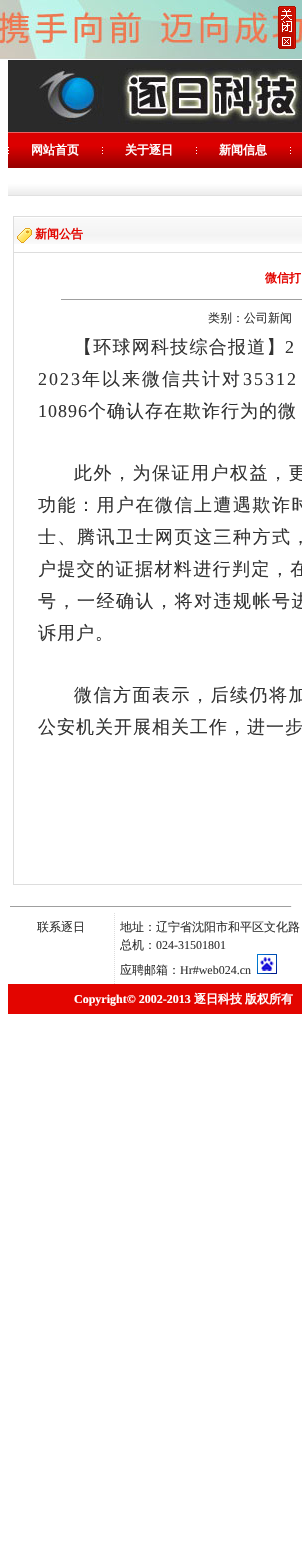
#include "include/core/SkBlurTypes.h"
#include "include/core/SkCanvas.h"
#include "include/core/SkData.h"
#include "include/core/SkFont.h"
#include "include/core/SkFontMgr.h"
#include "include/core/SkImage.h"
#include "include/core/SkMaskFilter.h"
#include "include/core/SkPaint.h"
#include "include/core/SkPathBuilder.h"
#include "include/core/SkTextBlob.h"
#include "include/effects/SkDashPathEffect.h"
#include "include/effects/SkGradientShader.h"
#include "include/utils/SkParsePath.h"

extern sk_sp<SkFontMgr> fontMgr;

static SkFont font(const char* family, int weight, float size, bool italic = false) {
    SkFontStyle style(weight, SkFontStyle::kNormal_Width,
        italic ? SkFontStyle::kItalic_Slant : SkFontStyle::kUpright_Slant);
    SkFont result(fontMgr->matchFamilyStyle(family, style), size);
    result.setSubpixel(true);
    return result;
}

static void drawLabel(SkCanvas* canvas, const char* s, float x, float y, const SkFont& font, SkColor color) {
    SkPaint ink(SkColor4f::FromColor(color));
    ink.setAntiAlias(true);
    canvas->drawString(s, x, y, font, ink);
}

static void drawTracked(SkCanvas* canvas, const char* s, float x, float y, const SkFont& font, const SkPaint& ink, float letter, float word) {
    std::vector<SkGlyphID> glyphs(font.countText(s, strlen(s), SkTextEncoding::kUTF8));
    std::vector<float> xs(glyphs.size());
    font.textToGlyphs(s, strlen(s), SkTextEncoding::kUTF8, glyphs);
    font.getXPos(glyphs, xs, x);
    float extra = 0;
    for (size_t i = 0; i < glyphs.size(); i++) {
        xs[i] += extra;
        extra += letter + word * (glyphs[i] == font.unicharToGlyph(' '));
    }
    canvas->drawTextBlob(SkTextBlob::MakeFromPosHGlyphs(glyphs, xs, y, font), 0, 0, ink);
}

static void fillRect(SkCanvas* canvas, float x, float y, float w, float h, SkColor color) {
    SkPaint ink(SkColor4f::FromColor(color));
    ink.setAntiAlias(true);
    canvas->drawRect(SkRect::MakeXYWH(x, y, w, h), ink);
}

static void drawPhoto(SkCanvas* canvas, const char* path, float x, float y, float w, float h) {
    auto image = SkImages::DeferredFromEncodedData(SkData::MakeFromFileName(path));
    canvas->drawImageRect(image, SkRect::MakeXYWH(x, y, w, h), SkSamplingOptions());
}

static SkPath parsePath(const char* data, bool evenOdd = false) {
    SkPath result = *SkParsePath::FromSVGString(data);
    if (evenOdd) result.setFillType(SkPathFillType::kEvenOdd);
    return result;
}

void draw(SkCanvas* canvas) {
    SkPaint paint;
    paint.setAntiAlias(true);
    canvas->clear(0xFFFFFFFF);
    drawPhoto(canvas, "assets/img1.png", 0, 0, 302, 64);
    drawPhoto(canvas, "assets/img2.png", 278, 6, 18, 43);
    fillRect(canvas, 8, 60, 294, 72, 0xFF2A2A2A);
    drawPhoto(canvas, "assets/img3.png", 35, 68, 69, 56);
    drawPhoto(canvas, "assets/img4.png", 118, 60, 184, 64);
    drawPhoto(canvas, "assets/img5.png", 8, 132, 294, 64);
    drawPhoto(canvas, "assets/img6.png", 8, 147, 283, 7);
    drawPhoto(canvas, "assets/img7.png", 99, 132, 1, 36);
    SkFont font1 = font("WenQuanYi Zen Hei", 700, 12);
    drawLabel(canvas, "网站首页", 31, 154, font1, 0xFFFFFFFF);
    drawPhoto(canvas, "assets/img7.png", 193, 132, 1, 36);
    drawLabel(canvas, "关于逐日", 125, 154, font1, 0xFFFFFFFF);
    drawPhoto(canvas, "assets/img7.png", 287, 132, 1, 36);
    drawLabel(canvas, "新闻信息", 219, 154, font1, 0xFFFFFFFF);
    drawPhoto(canvas, "assets/img8.png", 14, 218, 288, 26);
    paint.setStroke(true);
    paint.setStrokeWidth(1);
    paint.setColor(0xFFDDDDDD);
    canvas->drawRect(SkRect::MakeXYWH(13.5f, 216.5f, 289, 36), paint);
    drawPhoto(canvas, "assets/img9.png", 17, 228, 15, 15);
    drawLabel(canvas, "新闻公告", 35, 238, font1, 0xFFE30500);
    fillRect(canvas, 13, 884, 289, 1, 0xFFDDDDDD);
    fillRect(canvas, 13, 253, 1, 632, 0xFFDDDDDD);
    drawLabel(canvas, "微信打", 265, 282, font1, 0xFFE30500);
    fillRect(canvas, 61, 299, 241, 1, 0xFF9F9F9F);
    SkFont font2 = font("WenQuanYi Zen Hei", 500, 12);
    drawLabel(canvas, "类别：公司新闻", 208, 322, font2, 0xFF333333);
    SkFont font3 = font("WenQuanYi Zen Hei", 500, 18);
    paint.setStroke(false);
    paint.setColor(0xFF333333);
    drawTracked(canvas, "【环球网科技综合报道】", 74, 353, font3, paint, 1.25f, 0);
    SkFont font4 = font("Liberation Serif", 400, 18);
    drawTracked(canvas, "2", 285, 353, font4, paint, 1.25f, 0);
    drawTracked(canvas, "2023", 38, 385, font4, paint, 2, 0);
    drawTracked(canvas, "年以来微信共计对", 82, 385, font3, paint, 2, 0);
    drawTracked(canvas, "35312", 243, 385, font4, paint, 2, 0);
    drawTracked(canvas, "10896", 38, 417, font4, paint, 1, 0);
    drawTracked(canvas, "个确认存在欺诈行为的微", 88, 417, font3, paint, 1, 0);
    drawTracked(canvas, "此外，为保证用户权益，更", 74, 479, font3, paint, 1.5f, 0);
    drawTracked(canvas, "功能：用户在微信上遭遇欺诈时", 38, 511, font3, paint, 1.5f, 0);
    drawTracked(canvas, "士、腾讯卫士网页这三种方式，", 38, 543, font3, paint, 1.5f, 0);
    drawTracked(canvas, "户提交的证据材料进行判定，在", 38, 575, font3, paint, 1.4f, 0);
    drawTracked(canvas, "号，一经确认，将对违规帐号进", 38, 607, font3, paint, 1.5f, 0);
    drawTracked(canvas, "诉用户。", 38, 639, font3, paint, 1, 0);
    drawTracked(canvas, "微信方面表示，后续仍将加", 74, 701, font3, paint, 1.5f, 0);
    drawTracked(canvas, "公安机关开展相关工作，进一步", 38, 733, font3, paint, 1, 0);
    fillRect(canvas, 10, 906, 282, 1, 0xFF9F9F9F);
    fillRect(canvas, 291, 906, 1, 1, 0xFFEEEEEE);
    paint.setStroke(true);
    paint.setColor(0xFFDDDDDD);
    paint.setPathEffect(SkDashPathEffect::Make({{1, 1}}, 0));
    canvas->drawPath(parsePath("M114.5 913V984"), paint);
    paint.setPathEffect(nullptr);
    drawLabel(canvas, "联系逐日", 37, 931, font2, 0xFF333333);
    drawLabel(canvas, "地址：辽宁省沈阳市和平区文化路", 120, 931, font2, 0xFF333333);
    drawLabel(canvas, "总机：", 120, 949, font2, 0xFF333333);
    SkFont font5 = font("Liberation Serif", 400, 12);
    drawLabel(canvas, "024-31501801", 156, 949, font5, 0xFF333333);
    drawLabel(canvas, "应聘邮箱：", 120, 974, font2, 0xFF333333);
    drawLabel(canvas, "Hr#web024.cn", 180, 974, font5, 0xFF333333);
    drawPhoto(canvas, "assets/img10.png", 257, 954, 20, 20);
    fillRect(canvas, 8, 984, 294, 30, 0xFFE30500);
    SkFont font6 = font("Liberation Serif", 700, 12);
    drawLabel(canvas, "Copyright© 2002-2013", 74, 1003, font6, 0xFFFFFFFF);
    drawLabel(canvas, "逐日科技", 194, 1003, font1, 0xFFFFFFFF);
    drawLabel(canvas, "版权所有", 245, 1003, font1, 0xFFFFFFFF);
}
